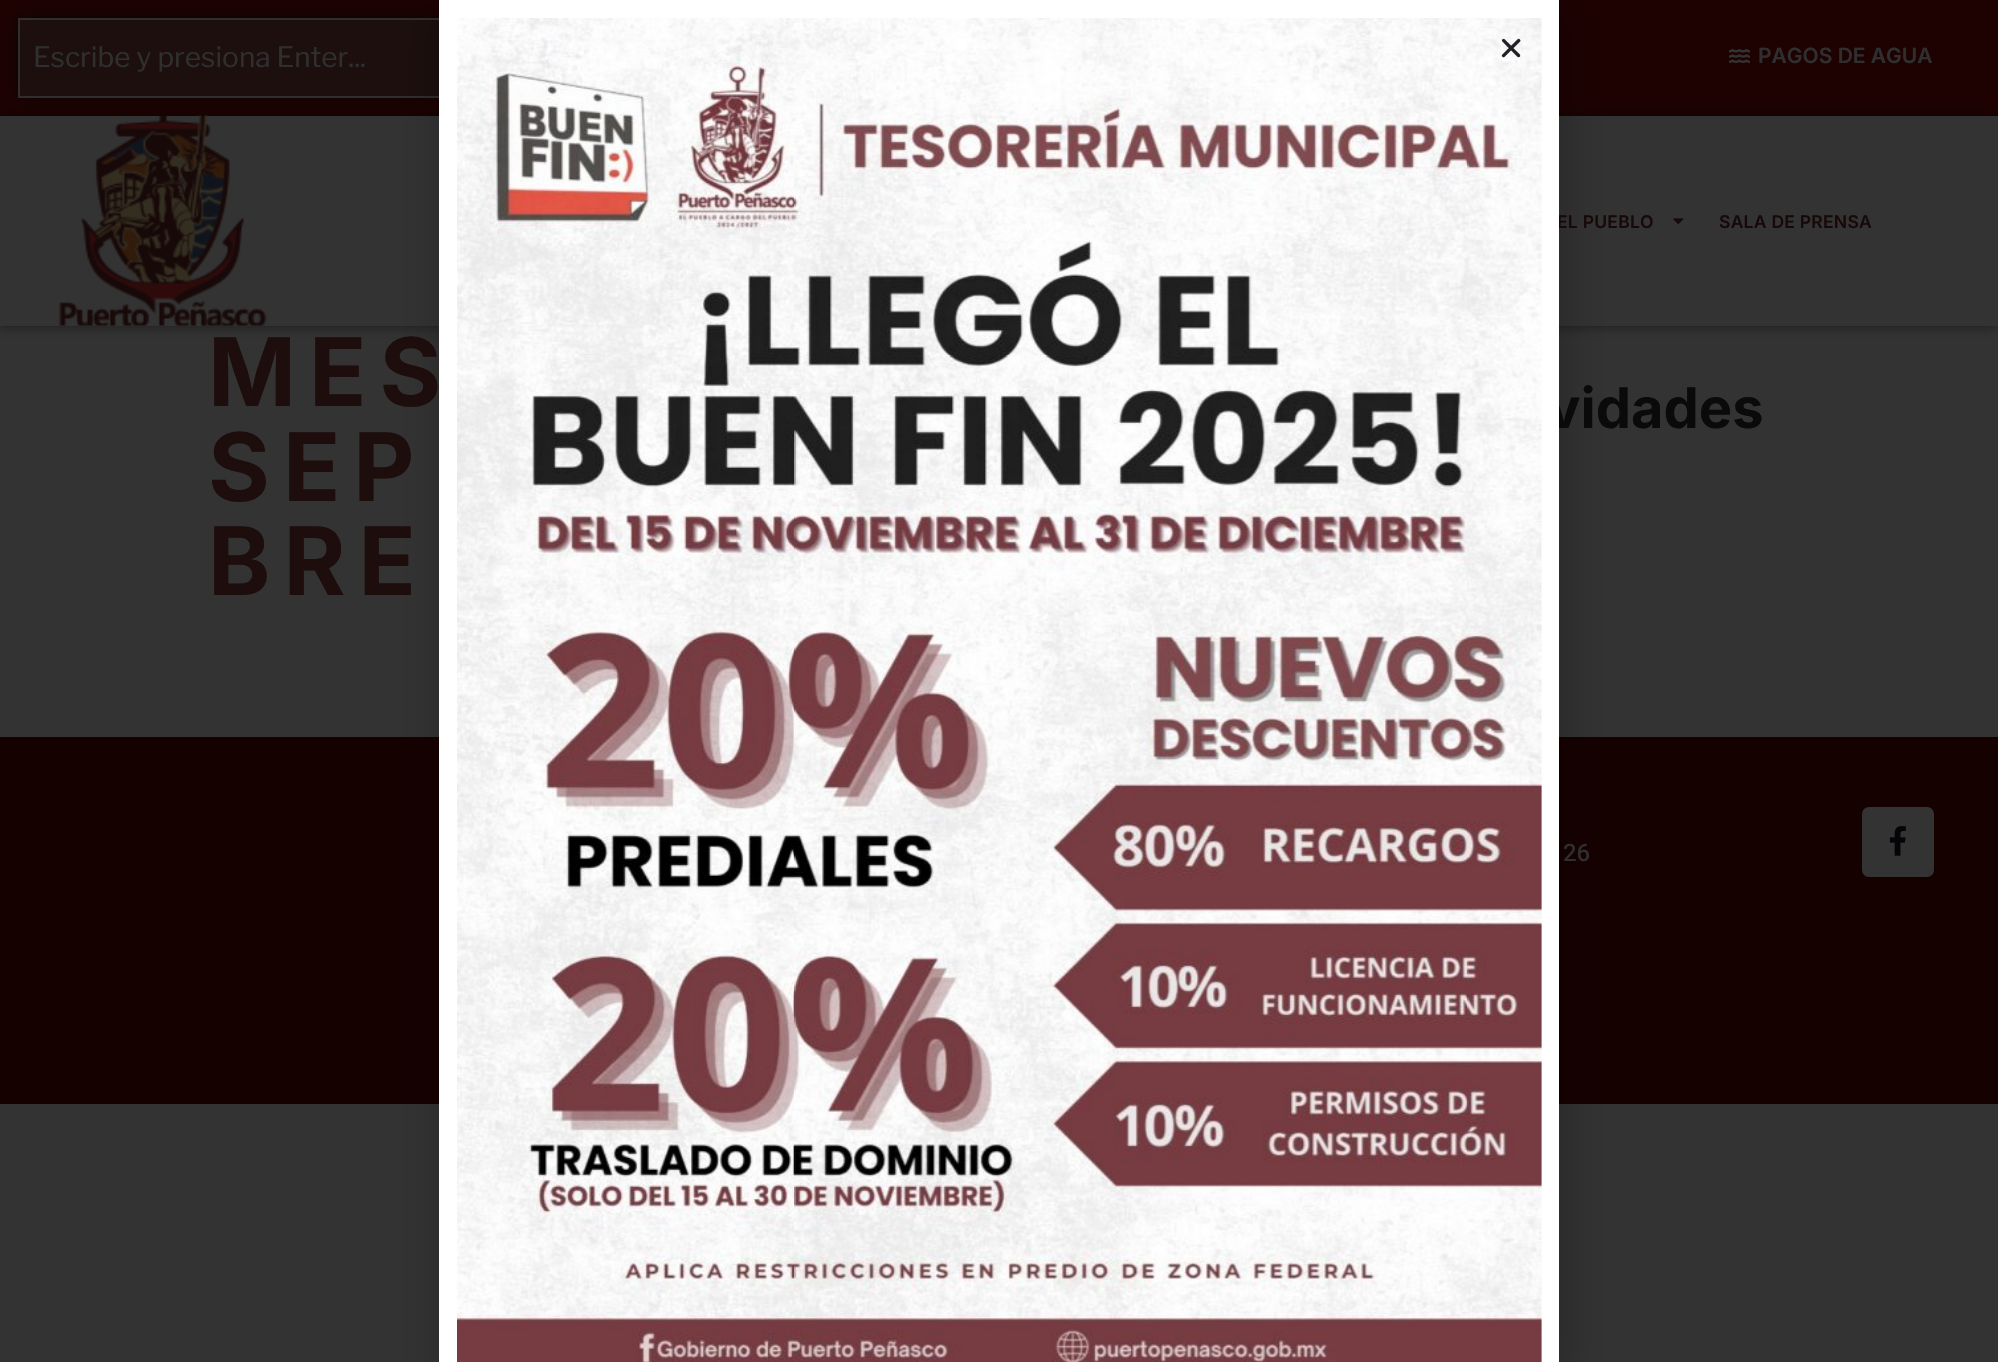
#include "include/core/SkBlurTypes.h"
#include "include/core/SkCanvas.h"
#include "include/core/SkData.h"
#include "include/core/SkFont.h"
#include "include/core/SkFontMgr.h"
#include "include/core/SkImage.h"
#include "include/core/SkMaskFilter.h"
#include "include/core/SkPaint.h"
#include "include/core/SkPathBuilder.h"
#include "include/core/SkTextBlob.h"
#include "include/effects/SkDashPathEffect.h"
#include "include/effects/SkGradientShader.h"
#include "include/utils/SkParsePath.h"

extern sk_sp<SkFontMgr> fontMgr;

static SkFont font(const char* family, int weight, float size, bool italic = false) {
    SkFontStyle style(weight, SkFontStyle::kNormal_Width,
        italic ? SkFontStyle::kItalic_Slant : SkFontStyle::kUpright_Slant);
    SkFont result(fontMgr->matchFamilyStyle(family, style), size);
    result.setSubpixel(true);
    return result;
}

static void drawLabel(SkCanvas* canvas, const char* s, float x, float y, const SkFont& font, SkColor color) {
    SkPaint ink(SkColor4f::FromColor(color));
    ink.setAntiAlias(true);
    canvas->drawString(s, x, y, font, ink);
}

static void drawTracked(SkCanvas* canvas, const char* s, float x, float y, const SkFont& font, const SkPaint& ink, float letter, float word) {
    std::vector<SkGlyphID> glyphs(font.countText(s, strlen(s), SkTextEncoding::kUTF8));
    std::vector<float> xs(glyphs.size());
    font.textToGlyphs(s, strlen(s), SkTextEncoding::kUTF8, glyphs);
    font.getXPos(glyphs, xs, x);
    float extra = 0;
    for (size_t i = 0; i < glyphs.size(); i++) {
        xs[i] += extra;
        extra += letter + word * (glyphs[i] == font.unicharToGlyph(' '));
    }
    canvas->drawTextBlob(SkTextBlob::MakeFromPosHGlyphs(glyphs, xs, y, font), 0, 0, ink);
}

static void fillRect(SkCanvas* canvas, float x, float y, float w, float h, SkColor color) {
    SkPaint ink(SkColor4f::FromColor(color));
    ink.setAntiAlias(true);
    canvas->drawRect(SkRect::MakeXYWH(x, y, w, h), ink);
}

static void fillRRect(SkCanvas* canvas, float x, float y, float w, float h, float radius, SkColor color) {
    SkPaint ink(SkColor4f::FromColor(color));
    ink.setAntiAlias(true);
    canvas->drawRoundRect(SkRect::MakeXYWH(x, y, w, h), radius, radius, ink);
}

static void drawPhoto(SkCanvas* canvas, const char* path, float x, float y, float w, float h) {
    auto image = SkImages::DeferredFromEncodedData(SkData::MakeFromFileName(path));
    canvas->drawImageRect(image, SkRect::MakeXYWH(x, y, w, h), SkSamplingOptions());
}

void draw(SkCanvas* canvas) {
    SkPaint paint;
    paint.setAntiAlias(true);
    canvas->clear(0xFF333333);
    fillRect(canvas, 0, 0, 1998, 116, 0xFF1E0202);
    paint.setColor(0x80000000);
    paint.setMaskFilter(SkMaskFilter::MakeBlur(kNormal_SkBlurStyle, 9));
    canvas->drawRect(SkRect::MakeXYWH(18, 18, 764, 80), paint);
    paint.setMaskFilter(nullptr);
    fillRect(canvas, 20, 20, 419, 76, 0xFF1C0F0E);
    paint.setStroke(true);
    paint.setStrokeWidth(2);
    paint.setColor(0xFF2F2F2F);
    canvas->drawRect(SkRect::MakeXYWH(19, 19, 692, 78), paint);
    paint.setStroke(false);
    paint.setColor(0x80000000);
    paint.setMaskFilter(SkMaskFilter::MakeBlur(kNormal_SkBlurStyle, 6));
    canvas->drawRect(SkRect::MakeXYWH(-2, 116, 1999, 210), paint);
    paint.setMaskFilter(nullptr);
    fillRect(canvas, 0, 116, 1998, 210, 0xFF333333);
    fillRect(canvas, 0, 737, 1998, 367, 0xFF160101);
    paint.setColor(0x33000000);
    paint.setMaskFilter(SkMaskFilter::MakeBlur(kNormal_SkBlurStyle, 20));
    canvas->drawRect(SkRect::MakeXYWH(438, 9, 1130, 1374), paint);
    paint.setMaskFilter(nullptr);
    SkFont font1 = font("Inter", 600, 17.5f);
    paint.setColor(0xFF170909);
    drawTracked(canvas, "EL PUEBLO", 1557, 228, font1, paint, 0.25f, 0);
    SkFont font2 = font("Inter", 700, 56);
    drawLabel(canvas, "vidades", 1547, 428, font2, 0xFF0A0A0A);
    fillRect(canvas, 439, 0, 1120, 1362, 0xFFFFFFFF);
    drawPhoto(canvas, "assets/img1.png", 457, 18, 1085, 1344);
    drawPhoto(canvas, "assets/img2.png", 1501, 38, 20, 20);
    SkFont font3 = font("Libre Franklin", 100, 28);
    drawLabel(canvas, "Escribe y presiona Enter...", 33, 67, font3, 0xFF2F2F30);
    drawPhoto(canvas, "assets/img3.png", 1729, 49, 21, 14);
    SkFont font4 = font("Inter", 600, 21);
    drawLabel(canvas, "PAGOS DE AGUA", 1758, 63, font4, 0xFF2F2F30);
    drawPhoto(canvas, "assets/img4.png", 59, 115, 208, 211);
    drawPhoto(canvas, "assets/img5.png", 1673, 218, 11, 6);
    drawTracked(canvas, "SALA DE PRENSA", 1719, 228, font1, paint, 0.25f, 0);
    SkFont font5 = font("Inter", 700, 94.5f);
    paint.setColor(0xFF1D0D0D);
    drawTracked(canvas, "MES", 208, 406, font5, paint, 13, 0);
    drawTracked(canvas, "SEP", 208, 501, font5, paint, 13, 0);
    drawTracked(canvas, "BRE", 208, 595, font5, paint, 13, 0);
    SkFont font6 = font("Heebo", 500, 24);
    drawLabel(canvas, "26", 1563, 861, font6, 0xFF2F2F30);
    fillRRect(canvas, 1862, 807, 72, 70, 7, 0xFF333333);
    drawPhoto(canvas, "assets/img6.png", 1889, 826, 17, 30);
}
